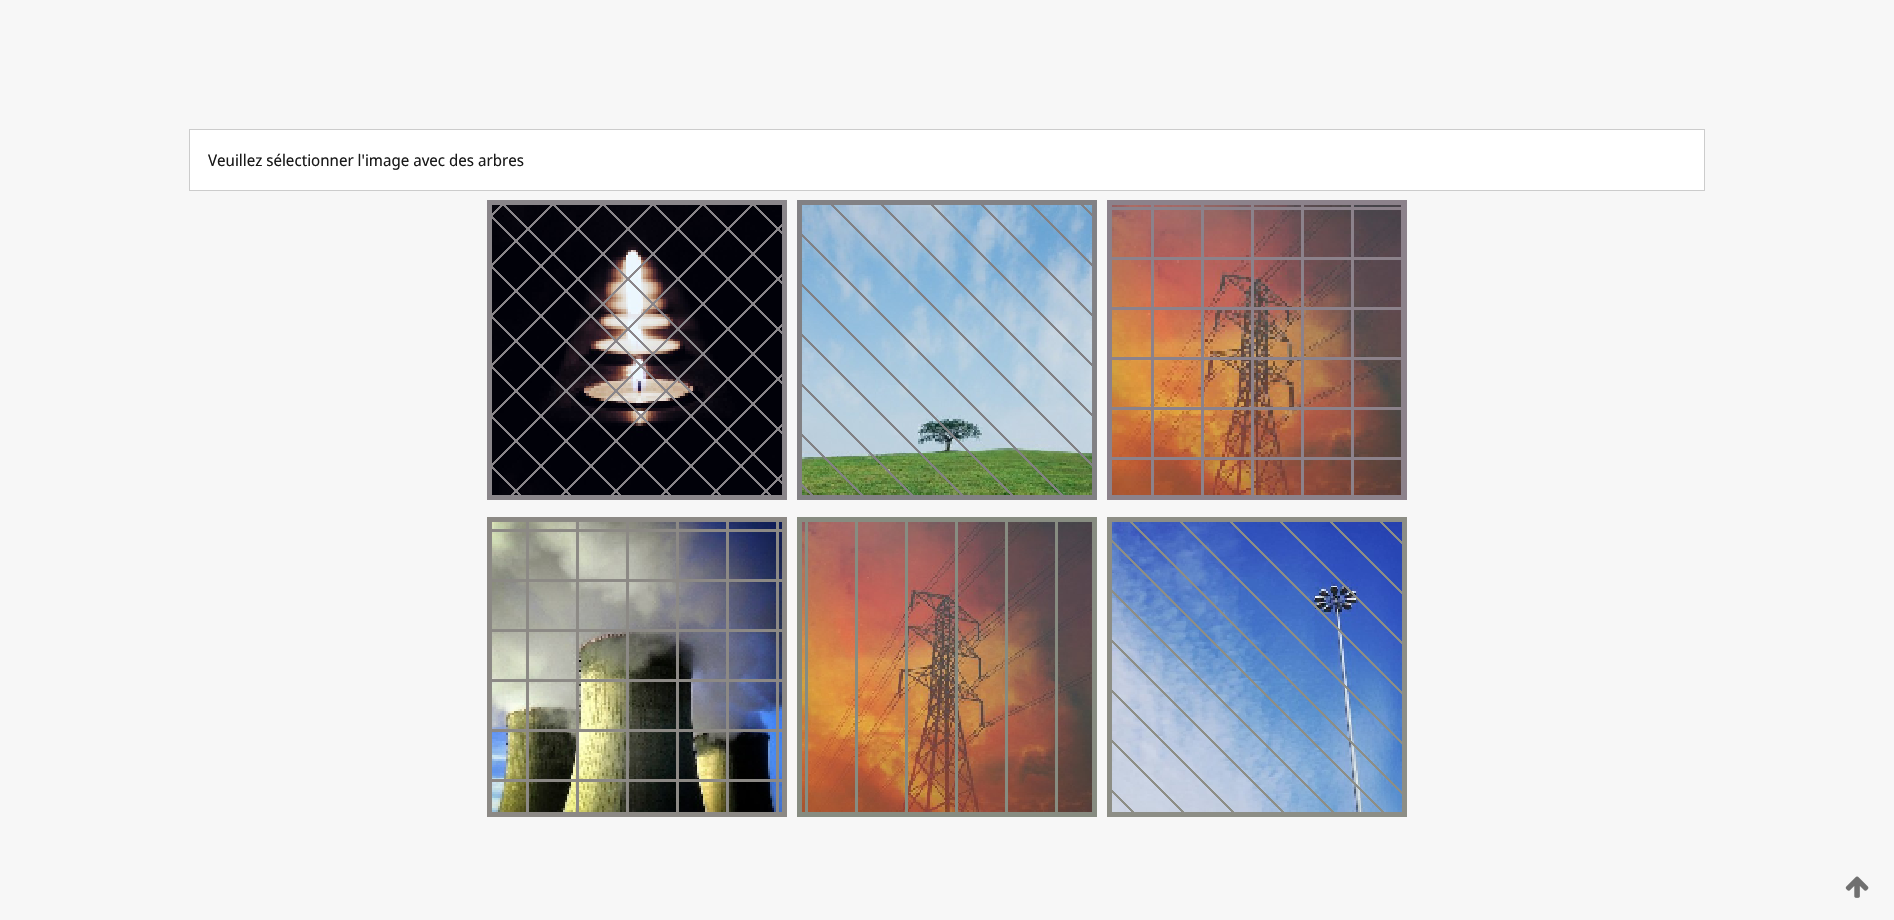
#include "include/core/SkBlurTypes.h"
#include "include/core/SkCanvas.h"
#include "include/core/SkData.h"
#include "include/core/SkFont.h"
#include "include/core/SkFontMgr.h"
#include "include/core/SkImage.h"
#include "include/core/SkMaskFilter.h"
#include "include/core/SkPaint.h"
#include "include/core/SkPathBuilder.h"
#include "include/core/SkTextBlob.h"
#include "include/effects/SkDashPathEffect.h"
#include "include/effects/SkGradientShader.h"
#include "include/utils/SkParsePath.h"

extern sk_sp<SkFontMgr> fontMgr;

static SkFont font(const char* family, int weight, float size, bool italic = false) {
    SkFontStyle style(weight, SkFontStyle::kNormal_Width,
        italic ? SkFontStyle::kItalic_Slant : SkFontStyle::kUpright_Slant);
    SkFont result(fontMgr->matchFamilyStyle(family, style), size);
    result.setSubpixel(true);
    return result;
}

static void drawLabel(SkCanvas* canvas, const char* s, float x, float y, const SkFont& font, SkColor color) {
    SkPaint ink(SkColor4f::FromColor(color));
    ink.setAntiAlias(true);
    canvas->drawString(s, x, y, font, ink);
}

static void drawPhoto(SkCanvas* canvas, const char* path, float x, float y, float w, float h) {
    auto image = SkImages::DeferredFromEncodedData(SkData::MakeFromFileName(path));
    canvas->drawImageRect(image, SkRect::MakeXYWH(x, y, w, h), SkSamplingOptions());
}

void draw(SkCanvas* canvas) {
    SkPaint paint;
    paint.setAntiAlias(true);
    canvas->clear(0xFFF7F7F7);
    paint.setColor(0xFFFFFFFF);
    canvas->drawRect(SkRect::MakeXYWH(189.5f, 129.5f, 1515, 61), paint);
    paint.setStroke(true);
    paint.setStrokeWidth(1);
    paint.setColor(0xFFCCCCCC);
    canvas->drawRect(SkRect::MakeXYWH(189.5f, 129.5f, 1515, 61), paint);
    SkFont font1 = font("Noto Sans Display", 400, 16);
    drawLabel(canvas, "Veuillez sélectionner l'image avec des arbres", 208, 166, font1, 0xFF1A1A1A);
    drawPhoto(canvas, "assets/img1.png", 487, 200, 300, 300);
    drawPhoto(canvas, "assets/img2.png", 797, 200, 300, 300);
    drawPhoto(canvas, "assets/img3.png", 1107, 200, 300, 300);
    drawPhoto(canvas, "assets/img4.png", 487, 517, 300, 300);
    drawPhoto(canvas, "assets/img5.png", 797, 517, 300, 300);
    drawPhoto(canvas, "assets/img6.png", 1107, 517, 300, 300);
    drawPhoto(canvas, "assets/img7.png", 1845, 876, 24, 22);
}
